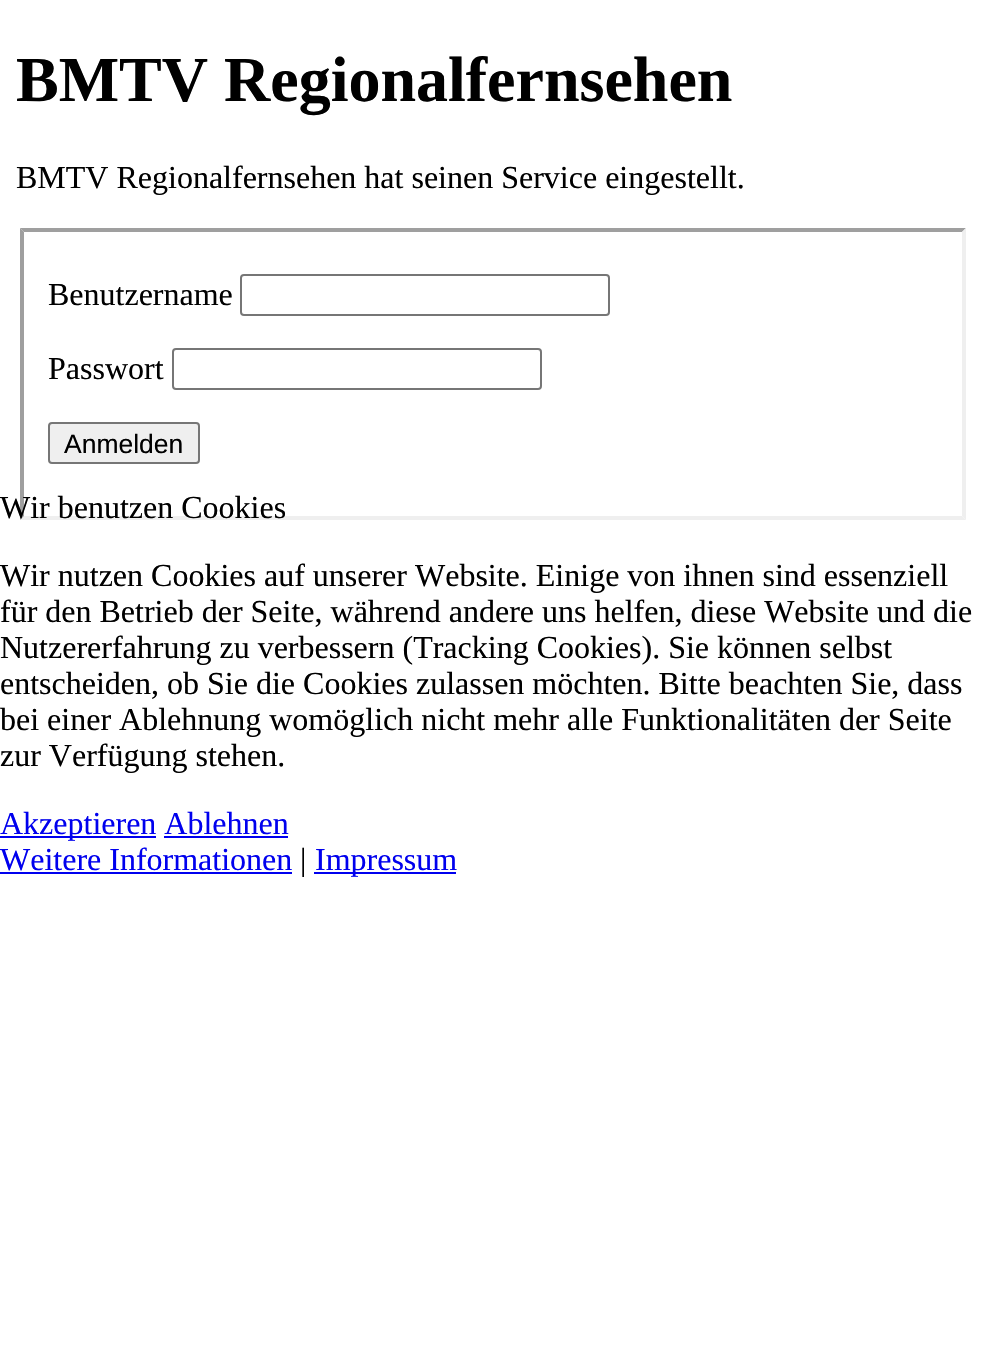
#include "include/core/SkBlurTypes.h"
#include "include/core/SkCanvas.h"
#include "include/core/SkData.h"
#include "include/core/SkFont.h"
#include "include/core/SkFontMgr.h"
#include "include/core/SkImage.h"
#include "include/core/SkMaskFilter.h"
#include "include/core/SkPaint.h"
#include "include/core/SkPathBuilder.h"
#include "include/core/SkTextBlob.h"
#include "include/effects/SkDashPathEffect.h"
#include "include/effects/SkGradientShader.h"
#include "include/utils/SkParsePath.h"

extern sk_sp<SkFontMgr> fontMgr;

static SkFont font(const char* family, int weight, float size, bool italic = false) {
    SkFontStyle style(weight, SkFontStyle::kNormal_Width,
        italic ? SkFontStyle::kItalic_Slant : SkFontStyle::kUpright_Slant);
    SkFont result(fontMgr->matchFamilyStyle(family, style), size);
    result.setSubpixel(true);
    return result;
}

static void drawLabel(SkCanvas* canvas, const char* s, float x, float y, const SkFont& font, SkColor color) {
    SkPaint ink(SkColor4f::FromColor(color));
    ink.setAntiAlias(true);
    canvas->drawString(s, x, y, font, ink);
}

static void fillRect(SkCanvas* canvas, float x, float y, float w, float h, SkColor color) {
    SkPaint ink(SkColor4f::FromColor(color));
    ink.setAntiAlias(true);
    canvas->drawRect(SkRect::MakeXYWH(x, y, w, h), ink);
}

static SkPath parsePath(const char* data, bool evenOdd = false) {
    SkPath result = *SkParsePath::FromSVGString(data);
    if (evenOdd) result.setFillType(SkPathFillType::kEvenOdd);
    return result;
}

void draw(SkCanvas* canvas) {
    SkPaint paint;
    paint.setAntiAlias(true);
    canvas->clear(0xFFFFFFFF);
    SkFont font1 = font("Liberation Serif", 700, 64);
    drawLabel(canvas, "BMTV Regionalfernsehen", 16, 101, font1, 0xFF000000);
    SkFont font2 = font("Liberation Serif", 400, 32);
    drawLabel(canvas, "BMTV Regionalfernsehen hat seinen Service eingestellt.", 16, 188, font2, 0xFF000000);
    paint.setColor(0xFF9F9F9F);
    canvas->drawPath(parsePath("M20 228H966L962 232H24Z"), paint);
    paint.setColor(0xFFEFEFEF);
    canvas->drawPath(parsePath("M966 228V520L962 516V232Z"), paint);
    canvas->drawPath(parsePath("M966 520H20L24 516H962Z"), paint);
    paint.setColor(0xFF9F9F9F);
    canvas->drawPath(parsePath("M20 520V228L24 232V516Z"), paint);
    drawLabel(canvas, "Benutzername", 48, 305, font2, 0xFF000000);
    paint.setStroke(true);
    paint.setStrokeWidth(2);
    paint.setColor(0xFF767676);
    canvas->drawRoundRect(SkRect::MakeXYWH(241, 275, 368, 40), 3, 3, paint);
    drawLabel(canvas, "Passwort", 48, 379, font2, 0xFF000000);
    canvas->drawRoundRect(SkRect::MakeXYWH(173, 349, 368, 40), 3, 3, paint);
    paint.setStroke(false);
    paint.setColor(0xFFEFEFEF);
    canvas->drawRoundRect(SkRect::MakeXYWH(49, 423, 150, 40), 3, 3, paint);
    paint.setStroke(true);
    paint.setColor(0xFF767676);
    canvas->drawRoundRect(SkRect::MakeXYWH(49, 423, 150, 40), 3, 3, paint);
    SkFont font3 = font("Liberation Sans", 400, 26.5f);
    drawLabel(canvas, "Anmelden", 64, 453, font3, 0xFF000000);
    drawLabel(canvas, "Wir benutzen Cookies", 0, 518, font2, 0xFF000000);
    drawLabel(canvas, "Wir nutzen Cookies auf unserer Website. Einige von ihnen sind essenziell", 0, 586, font2, 0xFF000000);
    drawLabel(canvas, "für den Betrieb der Seite, während andere uns helfen, diese Website und die", 0, 622, font2, 0xFF000000);
    drawLabel(canvas, "Nutzererfahrung zu verbessern (Tracking Cookies). Sie können selbst", 0, 658, font2, 0xFF000000);
    drawLabel(canvas, "entscheiden, ob Sie die Cookies zulassen möchten. Bitte beachten Sie, dass", 0, 694, font2, 0xFF000000);
    drawLabel(canvas, "bei einer Ablehnung womöglich nicht mehr alle Funktionalitäten der Seite", 0, 730, font2, 0xFF000000);
    drawLabel(canvas, "zur Verfügung stehen.", 0, 766, font2, 0xFF000000);
    fillRect(canvas, 0, 836, 156, 2, 0xFF0000EE);
    drawLabel(canvas, "Akzeptieren Ablehnen", 0, 834, font2, 0xFF0000EE);
    fillRect(canvas, 164, 836, 124, 2, 0xFF0000EE);
    drawLabel(canvas, "Weitere Informationen", 0, 870, font2, 0xFF0000EE);
    fillRect(canvas, 0, 872, 292, 2, 0xFF0000EE);
    drawLabel(canvas, "|", 300, 870, font2, 0xFF000000);
    fillRect(canvas, 314, 872, 142, 2, 0xFF0000EE);
    drawLabel(canvas, "Impressum", 315, 870, font2, 0xFF0000EE);
}
